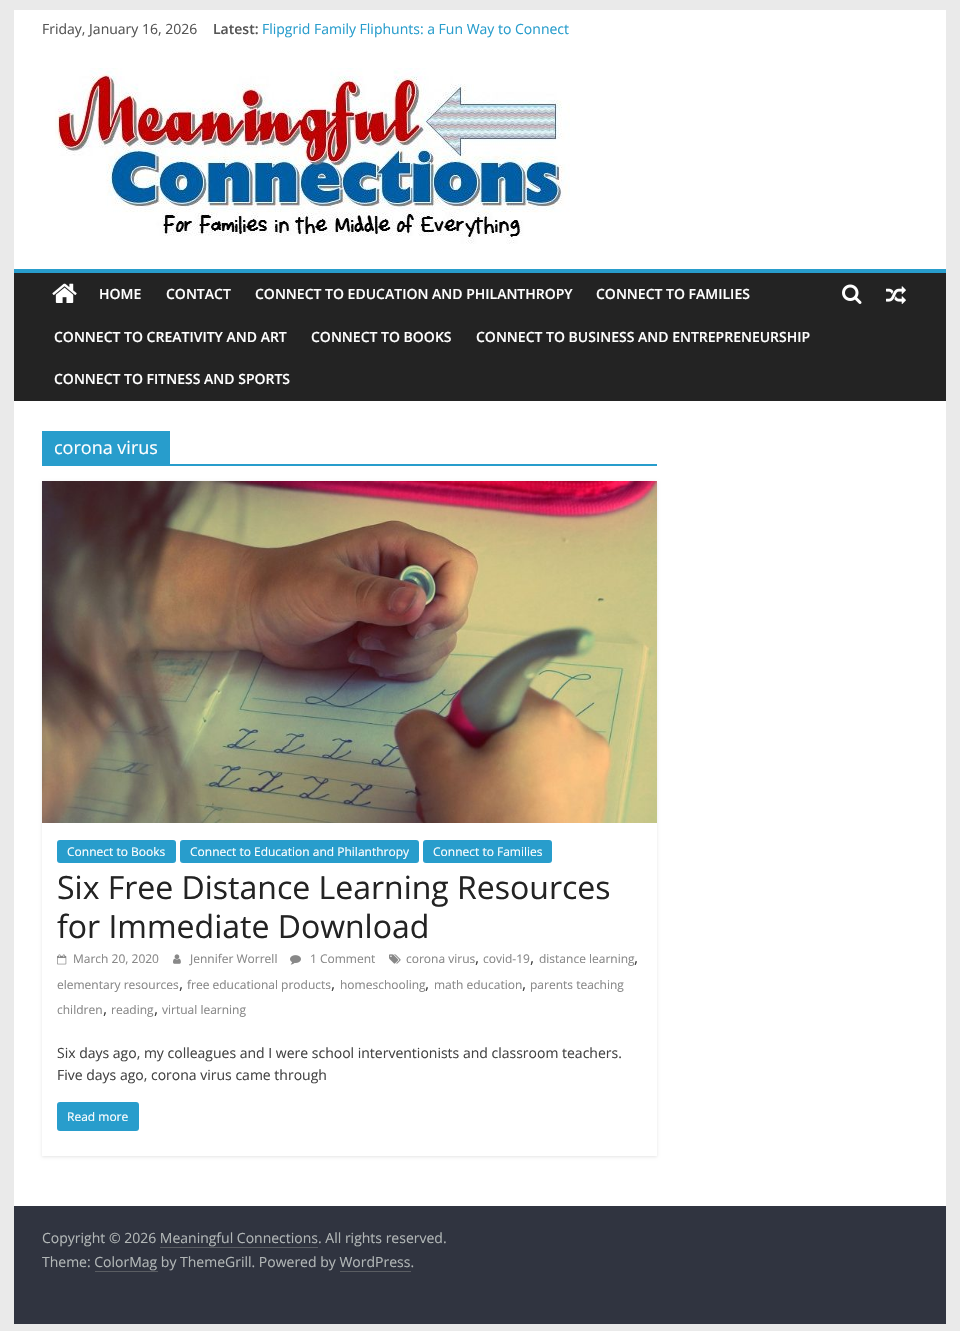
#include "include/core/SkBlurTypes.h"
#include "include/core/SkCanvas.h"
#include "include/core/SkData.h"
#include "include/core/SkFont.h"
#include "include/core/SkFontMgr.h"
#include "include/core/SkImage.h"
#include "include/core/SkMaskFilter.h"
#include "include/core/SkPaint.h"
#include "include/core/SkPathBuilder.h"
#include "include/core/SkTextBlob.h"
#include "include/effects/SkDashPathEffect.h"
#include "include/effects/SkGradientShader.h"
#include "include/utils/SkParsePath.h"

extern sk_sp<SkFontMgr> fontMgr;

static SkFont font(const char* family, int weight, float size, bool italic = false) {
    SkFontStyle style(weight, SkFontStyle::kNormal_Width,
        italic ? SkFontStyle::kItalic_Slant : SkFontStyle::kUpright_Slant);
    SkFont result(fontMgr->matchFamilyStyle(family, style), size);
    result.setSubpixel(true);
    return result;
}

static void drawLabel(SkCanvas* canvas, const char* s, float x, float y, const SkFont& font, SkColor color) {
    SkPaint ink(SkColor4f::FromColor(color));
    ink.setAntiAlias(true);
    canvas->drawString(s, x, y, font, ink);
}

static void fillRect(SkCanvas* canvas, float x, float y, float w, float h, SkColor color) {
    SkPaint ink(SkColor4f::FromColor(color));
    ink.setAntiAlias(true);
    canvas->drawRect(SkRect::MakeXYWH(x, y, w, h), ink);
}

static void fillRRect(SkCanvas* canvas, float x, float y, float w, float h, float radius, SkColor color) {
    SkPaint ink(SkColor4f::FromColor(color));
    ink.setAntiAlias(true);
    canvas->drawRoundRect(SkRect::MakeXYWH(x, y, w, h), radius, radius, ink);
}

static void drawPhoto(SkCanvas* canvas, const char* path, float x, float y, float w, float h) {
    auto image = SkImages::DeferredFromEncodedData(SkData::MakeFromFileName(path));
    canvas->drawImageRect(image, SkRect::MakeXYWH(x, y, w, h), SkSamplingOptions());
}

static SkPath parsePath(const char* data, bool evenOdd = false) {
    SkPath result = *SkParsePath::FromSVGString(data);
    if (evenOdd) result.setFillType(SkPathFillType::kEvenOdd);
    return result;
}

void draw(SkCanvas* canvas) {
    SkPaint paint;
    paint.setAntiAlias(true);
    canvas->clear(0xFFEAEAEA);
    fillRect(canvas, 14, 10, 932, 259, 0xFFFFFFFF);
    SkFont font1 = font("Open Sans", 400, 14);
    drawLabel(canvas, "Friday, January 16, 2026", 42, 34, font1, 0xFF555555);
    SkFont font2 = font("Open Sans", 600, 14);
    drawLabel(canvas, "Latest:", 213, 34, font2, 0xFF555555);
    drawLabel(canvas, "Flipgrid Family Fliphunts: a Fun Way to Connect", 262, 34, font1, 0xFF289DCC);
    drawPhoto(canvas, "assets/img1.png", 55, 68, 515, 176);
    fillRect(canvas, 14, 273, 932, 128, 0xFF232323);
    fillRect(canvas, 14, 269, 932, 4, 0xFF289DCC);
    drawPhoto(canvas, "assets/img2.png", 52, 283, 25, 20);
    drawPhoto(canvas, "assets/img3.png", 842, 284, 20, 20);
    drawPhoto(canvas, "assets/img4.png", 886, 286, 20, 18);
    drawLabel(canvas, "HOME", 99, 299, font2, 0xFFFFFFFF);
    drawLabel(canvas, "CONTACT", 166, 299, font2, 0xFFFFFFFF);
    drawLabel(canvas, "CONNECT TO EDUCATION AND PHILANTHROPY", 255, 299, font2, 0xFFFFFFFF);
    drawLabel(canvas, "CONNECT TO FAMILIES", 596, 299, font2, 0xFFFFFFFF);
    drawLabel(canvas, "CONNECT TO CREATIVITY AND ART", 54, 342, font2, 0xFFFFFFFF);
    drawLabel(canvas, "CONNECT TO BOOKS", 311, 342, font2, 0xFFFFFFFF);
    drawLabel(canvas, "CONNECT TO BUSINESS AND ENTREPRENEURSHIP", 476, 342, font2, 0xFFFFFFFF);
    drawLabel(canvas, "CONNECT TO FITNESS AND SPORTS", 54, 384, font2, 0xFFFFFFFF);
    fillRect(canvas, 14, 401, 932, 805, 0xFFFFFFFF);
    fillRect(canvas, 42, 464, 615, 2, 0xFF289DCC);
    fillRect(canvas, 42, 431, 128, 33, 0xFF289DCC);
    SkFont font3 = font("Open Sans", 400, 18);
    drawLabel(canvas, "corona virus", 54, 454, font3, 0xFFFFFFFF);
    canvas->save();
    canvas->clipPath(parsePath("M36 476H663V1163H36ZM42 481H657V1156H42Z", true), true);
    paint.setColor(0x1A000000);
    paint.setMaskFilter(SkMaskFilter::MakeBlur(kNormal_SkBlurStyle, 1.5f));
    canvas->drawRect(SkRect::MakeXYWH(42, 482, 615, 675), paint);
    paint.setMaskFilter(nullptr);
    canvas->restore();
    drawPhoto(canvas, "assets/img5.png", 42, 481, 615, 342);
    fillRRect(canvas, 57, 840, 119, 23, 3, 0xFF289DCC);
    SkFont font4 = font("Open Sans", 400, 12);
    drawLabel(canvas, "Connect to Books", 67, 856, font4, 0xFFFFFFFF);
    fillRRect(canvas, 180, 840, 239, 23, 3, 0xFF289DCC);
    drawLabel(canvas, "Connect to Education and Philanthropy", 190, 856, font4, 0xFFFFFFFF);
    fillRRect(canvas, 423, 840, 129, 23, 3, 0xFF289DCC);
    drawLabel(canvas, "Connect to Families", 433, 856, font4, 0xFFFFFFFF);
    SkFont font5 = font("Open Sans", 400, 32);
    drawLabel(canvas, "Six Free Distance Learning Resources", 57, 899, font5, 0xFF232323);
    drawLabel(canvas, "for Immediate Download", 57, 938, font5, 0xFF232323);
    drawPhoto(canvas, "assets/img6.png", 389, 954, 12, 10);
    drawLabel(canvas, "corona virus", 406, 963, font4, 0xFF888888);
    SkFont font6 = font("Open Sans", 400, 16);
    drawLabel(canvas, ",", 475, 963, font6, 0xFF444444);
    drawLabel(canvas, "covid-19", 483, 963, font4, 0xFF888888);
    drawLabel(canvas, ",", 530, 963, font6, 0xFF444444);
    drawLabel(canvas, "distance learning", 539, 963, font4, 0xFF888888);
    drawLabel(canvas, ",", 634, 963, font6, 0xFF444444);
    drawLabel(canvas, "elementary resources", 57, 989, font4, 0xFF888888);
    drawLabel(canvas, ",", 179, 989, font6, 0xFF444444);
    drawLabel(canvas, "free educational products", 187, 989, font4, 0xFF888888);
    drawLabel(canvas, ",", 331, 989, font6, 0xFF444444);
    drawLabel(canvas, "homeschooling", 340, 989, font4, 0xFF888888);
    drawLabel(canvas, ",", 425, 989, font6, 0xFF444444);
    drawLabel(canvas, "math education", 434, 989, font4, 0xFF888888);
    drawLabel(canvas, ",", 522, 989, font6, 0xFF444444);
    drawLabel(canvas, "parents teaching", 530, 989, font4, 0xFF888888);
    drawLabel(canvas, "children", 57, 1014, font4, 0xFF888888);
    drawLabel(canvas, ",", 103, 1014, font6, 0xFF444444);
    drawLabel(canvas, "reading", 111, 1014, font4, 0xFF888888);
    drawLabel(canvas, ",", 154, 1014, font6, 0xFF444444);
    drawLabel(canvas, "virtual learning", 162, 1014, font4, 0xFF888888);
    drawPhoto(canvas, "assets/img7.png", 57, 954, 10, 11);
    drawLabel(canvas, "March 20, 2020", 73, 963, font4, 0xFF888888);
    drawPhoto(canvas, "assets/img8.png", 173, 954, 8, 10);
    drawLabel(canvas, "Jennifer Worrell", 190, 963, font4, 0xFF888888);
    drawPhoto(canvas, "assets/img9.png", 290, 955, 11, 10);
    drawLabel(canvas, "1 Comment", 310, 963, font4, 0xFF888888);
    drawLabel(canvas, "Six days ago, my colleagues and I were school interventionists and classroom teachers.", 57, 1058, font1, 0xFF444444);
    drawLabel(canvas, "Five days ago, corona virus came through", 57, 1080, font1, 0xFF444444);
    fillRRect(canvas, 57, 1102, 82, 29, 3, 0xFF289DCC);
    drawLabel(canvas, "Read more", 67, 1121, font4, 0xFFFFFFFF);
    fillRect(canvas, 14, 1206, 932, 118, 0xFF303440);
    drawLabel(canvas, "Copyright © 2026 Meaningful Connections. All rights reserved.", 42, 1243, font1, 0xFFB1B6B6);
    fillRect(canvas, 160, 1247, 158, 1, 0xFF5A5D62);
    drawLabel(canvas, "Theme: ColorMag by ThemeGrill. Powered by WordPress.", 42, 1267, font1, 0xFFB1B6B6);
    fillRect(canvas, 95, 1271, 63, 1, 0xFF5A5D62);
    fillRect(canvas, 340, 1271, 71, 1, 0xFF5A5D62);
}
